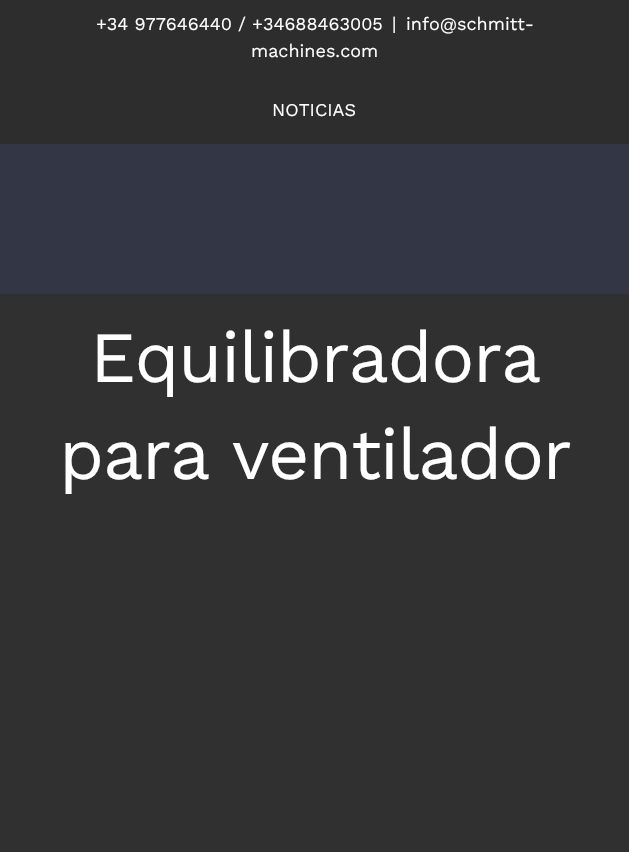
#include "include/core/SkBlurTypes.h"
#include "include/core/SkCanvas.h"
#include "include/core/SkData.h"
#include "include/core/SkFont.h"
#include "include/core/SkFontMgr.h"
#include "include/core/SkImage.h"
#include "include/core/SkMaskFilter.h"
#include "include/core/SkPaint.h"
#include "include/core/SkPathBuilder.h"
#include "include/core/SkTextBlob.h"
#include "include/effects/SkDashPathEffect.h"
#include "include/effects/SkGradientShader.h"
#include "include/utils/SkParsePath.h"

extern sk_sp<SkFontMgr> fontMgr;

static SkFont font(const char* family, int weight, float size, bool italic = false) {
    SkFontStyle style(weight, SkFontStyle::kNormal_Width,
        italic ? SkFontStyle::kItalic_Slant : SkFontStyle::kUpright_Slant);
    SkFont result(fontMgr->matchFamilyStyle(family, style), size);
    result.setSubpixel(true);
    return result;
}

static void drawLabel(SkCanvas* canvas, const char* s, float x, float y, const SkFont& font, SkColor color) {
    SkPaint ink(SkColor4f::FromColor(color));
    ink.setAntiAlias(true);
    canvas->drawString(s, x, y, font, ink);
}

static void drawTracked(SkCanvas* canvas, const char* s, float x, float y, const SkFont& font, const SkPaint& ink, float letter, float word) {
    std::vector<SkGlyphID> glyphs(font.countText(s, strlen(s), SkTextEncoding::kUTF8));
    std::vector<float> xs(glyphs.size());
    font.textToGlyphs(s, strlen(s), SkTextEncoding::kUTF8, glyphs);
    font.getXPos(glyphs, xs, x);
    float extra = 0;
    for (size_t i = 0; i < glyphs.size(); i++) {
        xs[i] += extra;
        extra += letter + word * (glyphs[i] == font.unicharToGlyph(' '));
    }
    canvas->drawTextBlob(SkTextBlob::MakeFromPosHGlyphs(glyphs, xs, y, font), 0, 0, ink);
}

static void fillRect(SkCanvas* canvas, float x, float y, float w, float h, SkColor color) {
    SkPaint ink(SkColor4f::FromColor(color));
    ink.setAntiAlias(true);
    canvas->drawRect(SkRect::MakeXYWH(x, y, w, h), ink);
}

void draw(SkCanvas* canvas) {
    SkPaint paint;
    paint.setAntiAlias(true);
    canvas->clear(0xFF303030);
    fillRect(canvas, 0, 0, 629, 144, 0xFF2D2D2D);
    SkFont font1 = font("Work Sans", 400, 18);
    drawLabel(canvas, "+34 977646440 / +34688463005", 96, 30, font1, 0xFFFFFFFF);
    drawLabel(canvas, "|", 392, 30, font1, 0xFFFFFFFF);
    drawLabel(canvas, "info@schmitt-", 406, 30, font1, 0xFFFFFFFF);
    drawLabel(canvas, "machines.com", 251, 57, font1, 0xFFFFFFFF);
    drawLabel(canvas, "NOTICIAS", 272, 116, font1, 0xFFFFFFFF);
    fillRect(canvas, 0, 144, 629, 150, 0xFF333645);
    SkFont font2 = font("Work Sans", 400, 72);
    paint.setColor(0xFFFFFFFF);
    drawTracked(canvas, "Equilibradora", 90, 382, font2, paint, -1.5f, 0);
    drawTracked(canvas, "para ventilador", 59, 479, font2, paint, -1.5f, 0);
}
